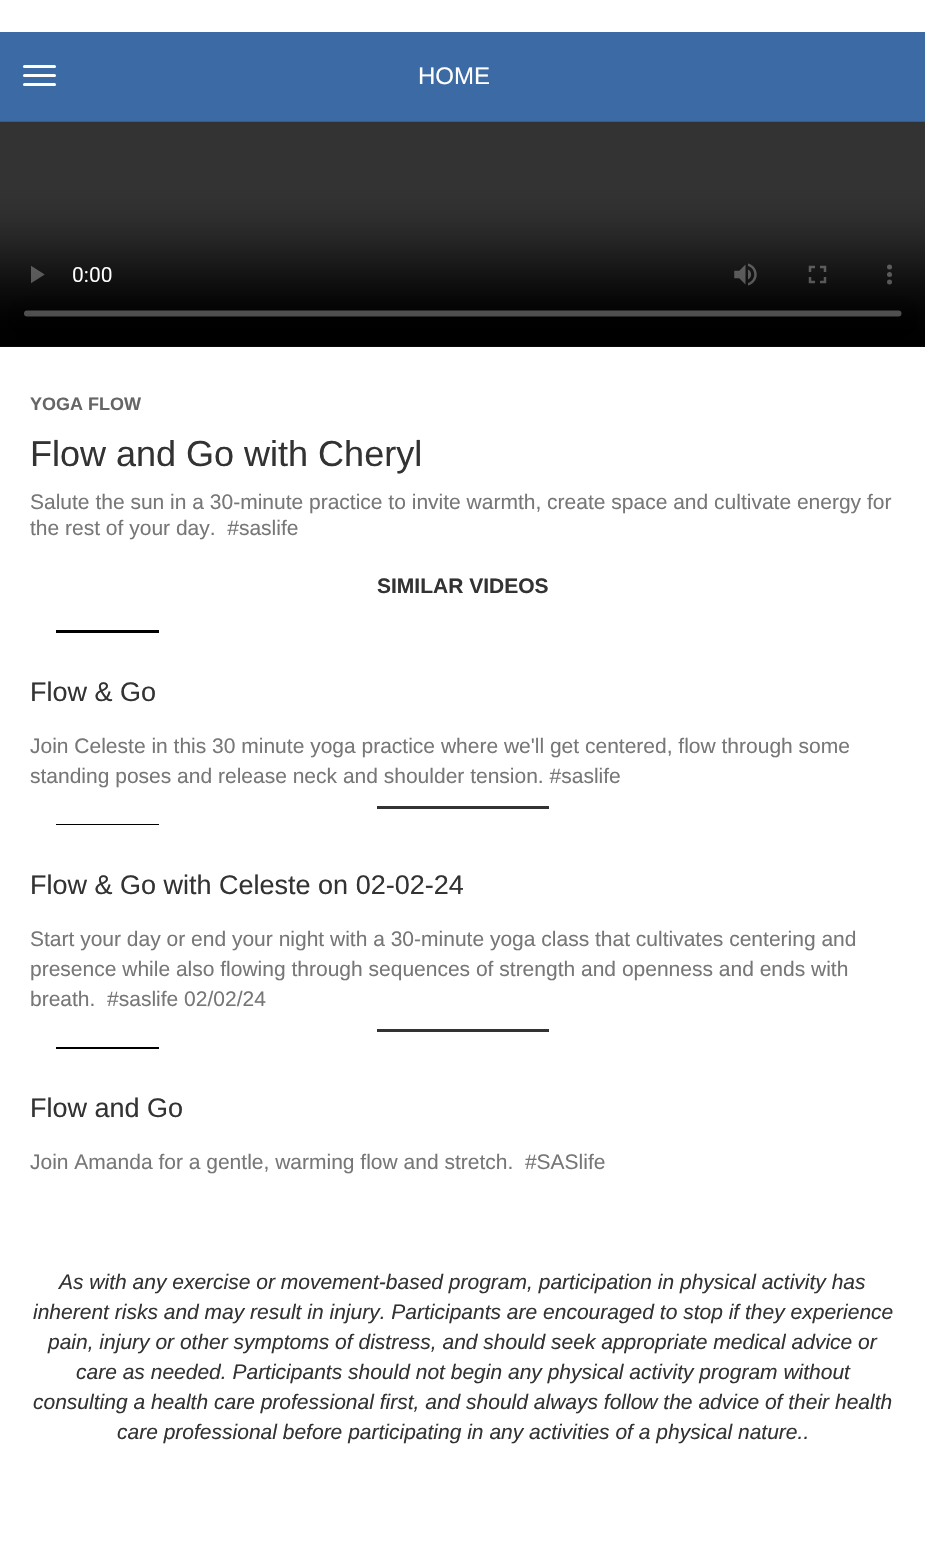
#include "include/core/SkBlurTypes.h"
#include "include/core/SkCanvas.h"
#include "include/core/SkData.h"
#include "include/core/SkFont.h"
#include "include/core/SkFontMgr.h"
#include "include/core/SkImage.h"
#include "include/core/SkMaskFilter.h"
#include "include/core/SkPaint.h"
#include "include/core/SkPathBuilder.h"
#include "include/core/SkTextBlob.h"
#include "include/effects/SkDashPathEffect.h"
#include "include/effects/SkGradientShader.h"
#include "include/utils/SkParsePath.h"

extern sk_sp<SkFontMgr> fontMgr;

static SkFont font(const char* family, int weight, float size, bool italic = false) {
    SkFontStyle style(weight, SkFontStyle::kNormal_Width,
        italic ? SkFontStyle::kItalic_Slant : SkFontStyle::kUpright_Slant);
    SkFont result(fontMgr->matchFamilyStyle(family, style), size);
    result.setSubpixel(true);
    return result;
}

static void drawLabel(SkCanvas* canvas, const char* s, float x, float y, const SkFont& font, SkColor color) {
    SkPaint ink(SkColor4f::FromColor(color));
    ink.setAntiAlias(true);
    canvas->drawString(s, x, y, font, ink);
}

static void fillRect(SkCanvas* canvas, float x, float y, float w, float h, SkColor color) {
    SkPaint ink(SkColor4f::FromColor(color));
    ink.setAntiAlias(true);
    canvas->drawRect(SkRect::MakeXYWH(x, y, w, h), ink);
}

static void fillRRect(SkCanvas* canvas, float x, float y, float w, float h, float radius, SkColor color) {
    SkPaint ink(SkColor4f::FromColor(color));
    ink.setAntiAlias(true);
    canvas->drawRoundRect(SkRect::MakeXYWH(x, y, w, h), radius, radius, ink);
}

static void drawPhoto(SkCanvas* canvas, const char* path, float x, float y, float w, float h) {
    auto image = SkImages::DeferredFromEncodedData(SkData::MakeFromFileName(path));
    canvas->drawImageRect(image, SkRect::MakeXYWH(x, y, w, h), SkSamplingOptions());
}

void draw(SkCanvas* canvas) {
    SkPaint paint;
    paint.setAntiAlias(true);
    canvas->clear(0xFFFFFFFF);
    fillRect(canvas, 0, 32, 925, 90, 0xFF3B6AA4);
    fillRRect(canvas, 23, 65, 33, 3, 1.5f, 0xFFFFFFFF);
    fillRRect(canvas, 23, 74, 33, 3, 1.5f, 0xFFFFFFFF);
    fillRRect(canvas, 23, 83, 33, 3, 1.5f, 0xFFFFFFFF);
    SkFont font1 = font("Liberation Sans", 400, 24);
    drawLabel(canvas, "HOME", 418, 84, font1, 0xFFFFFFFF);
    fillRect(canvas, 0, 346, 925, 1, 0xFF000000);
    drawPhoto(canvas, "assets/img1.png", 0, 121, 925, 226);
    SkFont font2 = font("Liberation Sans", 700, 18);
    drawLabel(canvas, "YOGA FLOW", 30, 410, font2, 0xFF666666);
    SkFont font3 = font("Liberation Sans", 400, 36);
    drawLabel(canvas, "Flow and Go with Cheryl", 30, 466, font3, 0xFF333333);
    SkFont font4 = font("Liberation Sans", 400, 21);
    drawLabel(canvas, "Salute the sun in a 30-minute practice to invite warmth, create space and cultivate energy for", 30, 509, font4, 0xFF777777);
    drawLabel(canvas, "the rest of your day.  #saslife", 30, 535, font4, 0xFF777777);
    SkFont font5 = font("Liberation Sans", 700, 21);
    drawLabel(canvas, "SIMILAR VIDEOS", 377, 593, font5, 0xFF333333);
    fillRect(canvas, 56, 630, 103, 3, 0xFF000000);
    SkFont font6 = font("Liberation Sans", 400, 27);
    drawLabel(canvas, "Flow & Go", 30, 701, font6, 0xFF333333);
    drawLabel(canvas, "Join Celeste in this 30 minute yoga practice where we'll get centered, flow through some", 30, 753, font4, 0xFF777777);
    drawLabel(canvas, "standing poses and release neck and shoulder tension. #saslife", 30, 783, font4, 0xFF777777);
    fillRect(canvas, 377, 806, 172, 3, 0xFF333333);
    fillRect(canvas, 56, 824, 103, 1, 0xFF000000);
    drawLabel(canvas, "Flow & Go with Celeste on 02-02-24", 30, 894, font6, 0xFF333333);
    drawLabel(canvas, "Start your day or end your night with a 30-minute yoga class that cultivates centering and", 30, 946, font4, 0xFF777777);
    drawLabel(canvas, "presence while also flowing through sequences of strength and openness and ends with", 30, 976, font4, 0xFF777777);
    drawLabel(canvas, "breath.  #saslife 02/02/24", 30, 1006, font4, 0xFF777777);
    fillRect(canvas, 377, 1029, 172, 3, 0xFF333333);
    fillRect(canvas, 56, 1047, 103, 2, 0xFF000000);
    drawLabel(canvas, "Flow and Go", 30, 1117, font6, 0xFF333333);
    drawLabel(canvas, "Join Amanda for a gentle, warming flow and stretch.  #SASlife", 30, 1169, font4, 0xFF777777);
    SkFont font7 = font("Liberation Sans", 400, 21, true);
    drawLabel(canvas, "As with any exercise or movement-based program, participation in physical activity has", 59, 1289, font7, 0xFF333333);
    drawLabel(canvas, "inherent risks and may result in injury. Participants are encouraged to stop if they experience", 33, 1319, font7, 0xFF333333);
    drawLabel(canvas, "pain, injury or other symptoms of distress, and should seek appropriate medical advice or", 48, 1349, font7, 0xFF333333);
    drawLabel(canvas, "care as needed. Participants should not begin any physical activity program without", 76, 1379, font7, 0xFF333333);
    drawLabel(canvas, "consulting a health care professional first, and should always follow the advice of their health", 33, 1409, font7, 0xFF333333);
    drawLabel(canvas, "care professional before participating in any activities of a physical nature..", 117, 1439, font7, 0xFF333333);
}
